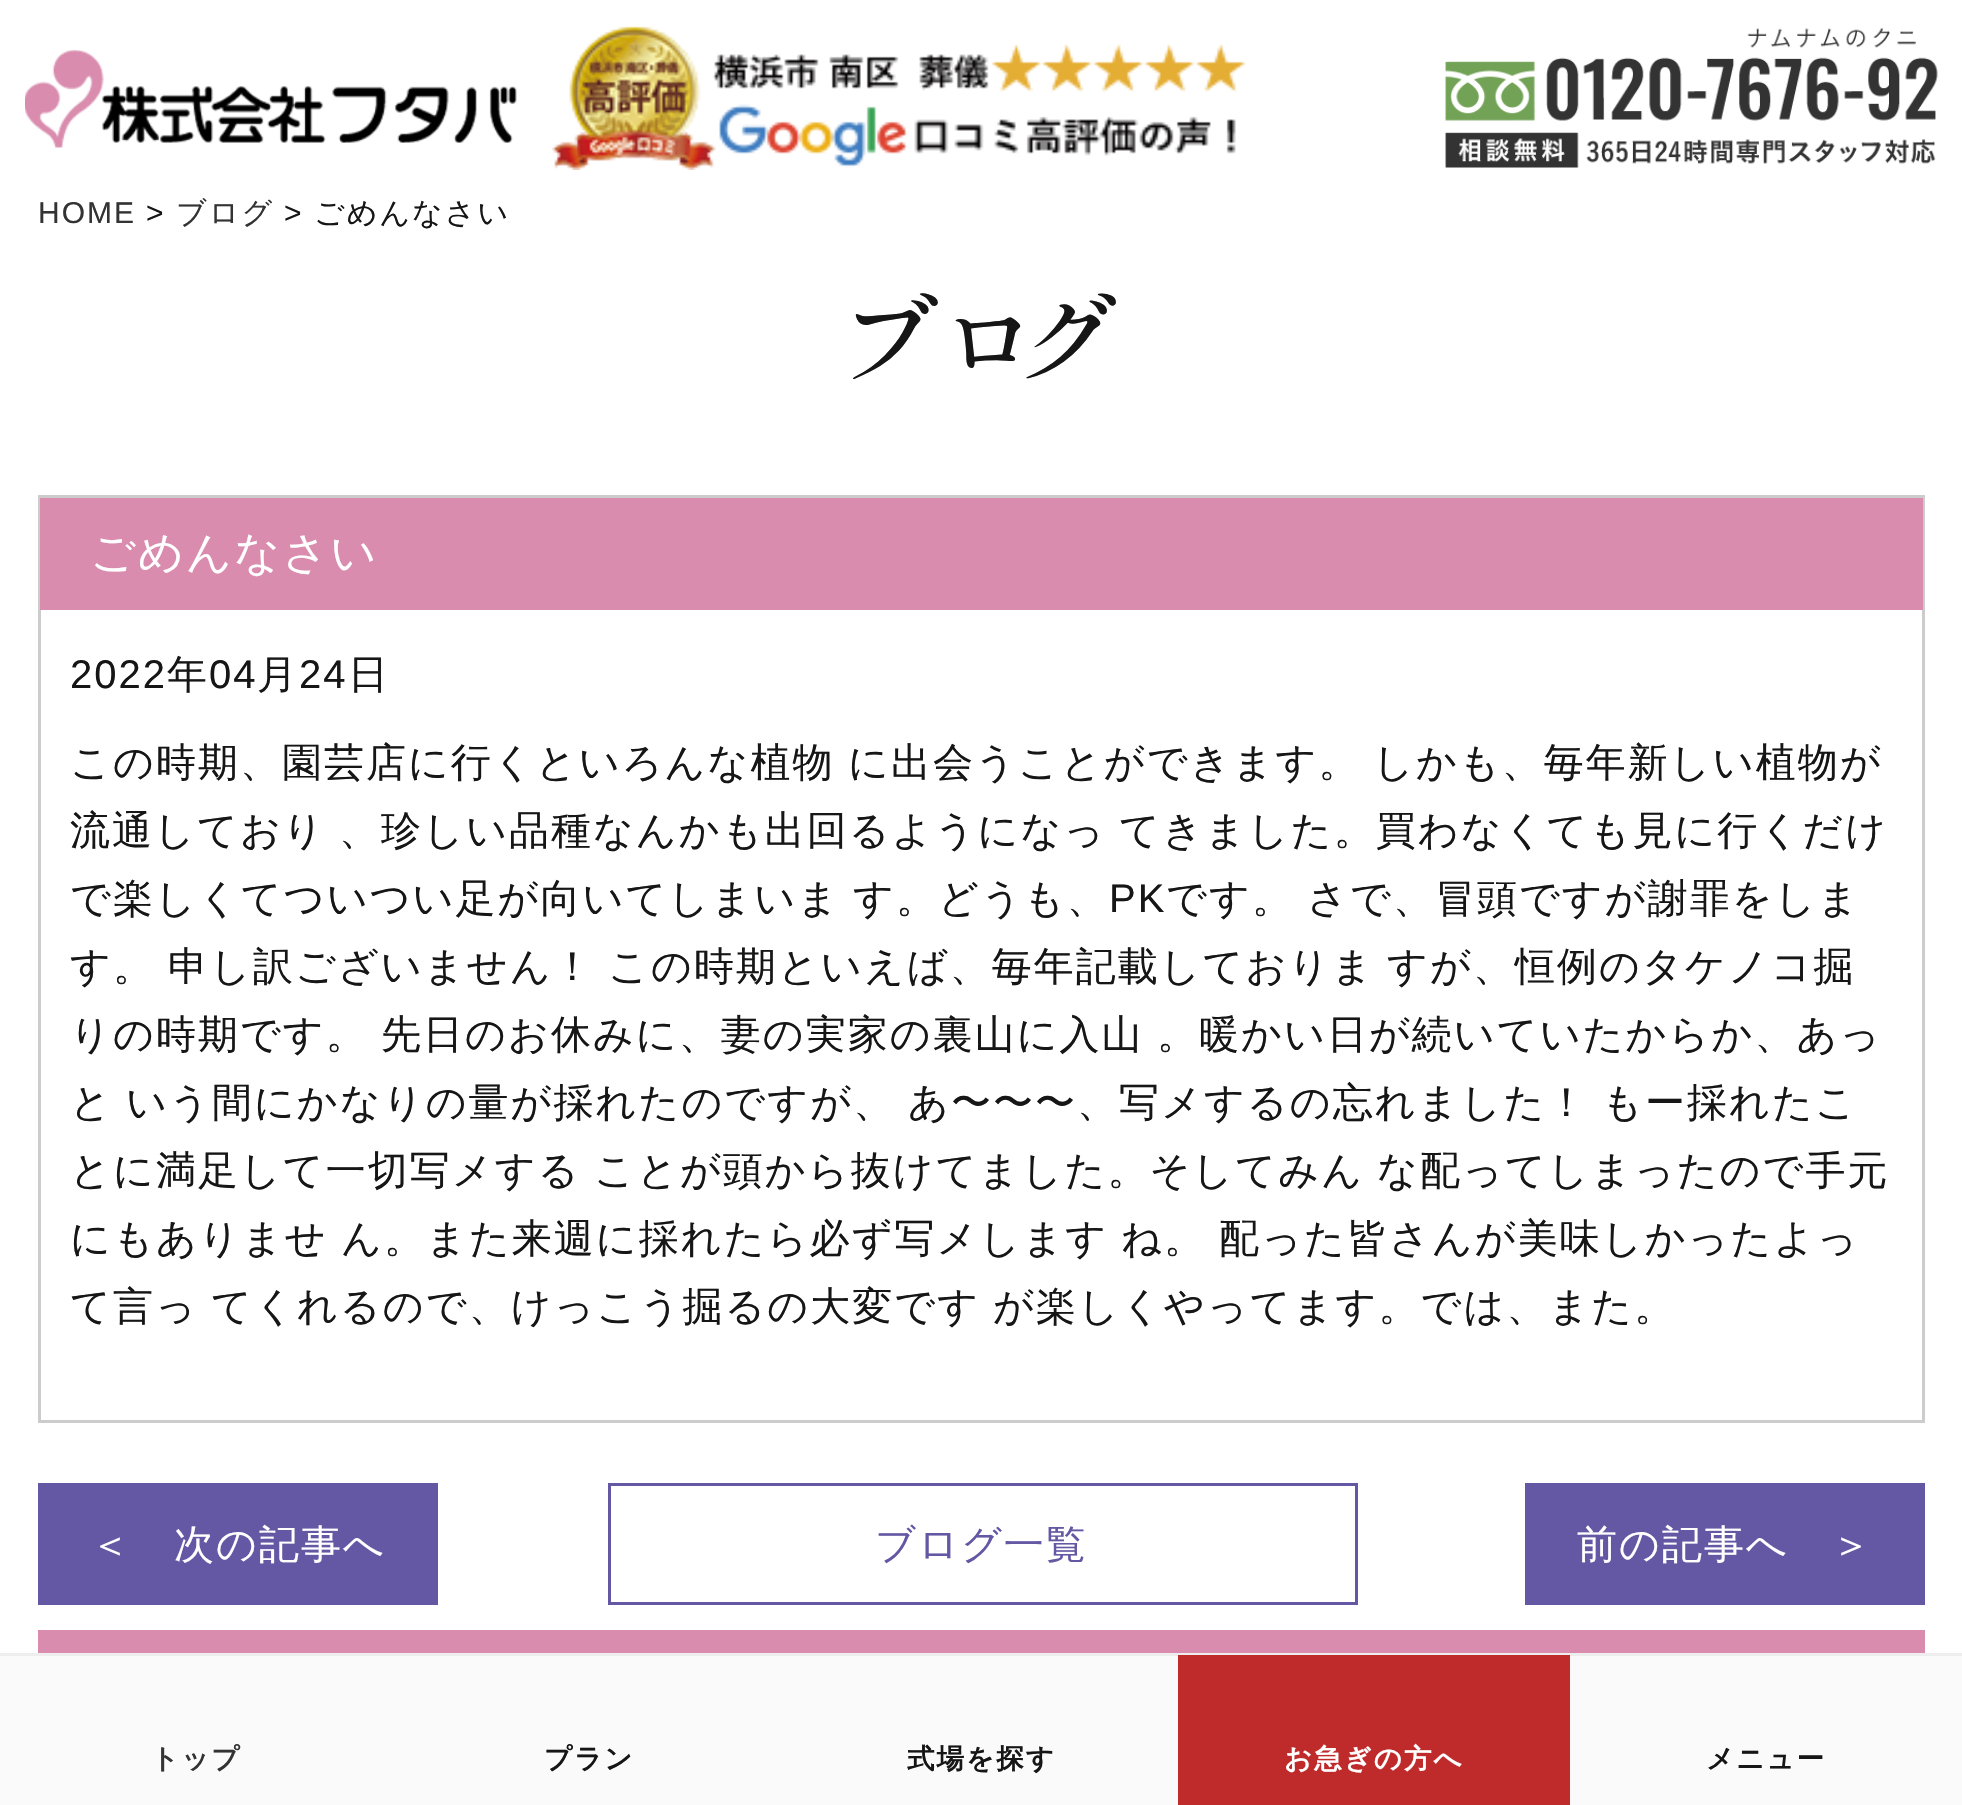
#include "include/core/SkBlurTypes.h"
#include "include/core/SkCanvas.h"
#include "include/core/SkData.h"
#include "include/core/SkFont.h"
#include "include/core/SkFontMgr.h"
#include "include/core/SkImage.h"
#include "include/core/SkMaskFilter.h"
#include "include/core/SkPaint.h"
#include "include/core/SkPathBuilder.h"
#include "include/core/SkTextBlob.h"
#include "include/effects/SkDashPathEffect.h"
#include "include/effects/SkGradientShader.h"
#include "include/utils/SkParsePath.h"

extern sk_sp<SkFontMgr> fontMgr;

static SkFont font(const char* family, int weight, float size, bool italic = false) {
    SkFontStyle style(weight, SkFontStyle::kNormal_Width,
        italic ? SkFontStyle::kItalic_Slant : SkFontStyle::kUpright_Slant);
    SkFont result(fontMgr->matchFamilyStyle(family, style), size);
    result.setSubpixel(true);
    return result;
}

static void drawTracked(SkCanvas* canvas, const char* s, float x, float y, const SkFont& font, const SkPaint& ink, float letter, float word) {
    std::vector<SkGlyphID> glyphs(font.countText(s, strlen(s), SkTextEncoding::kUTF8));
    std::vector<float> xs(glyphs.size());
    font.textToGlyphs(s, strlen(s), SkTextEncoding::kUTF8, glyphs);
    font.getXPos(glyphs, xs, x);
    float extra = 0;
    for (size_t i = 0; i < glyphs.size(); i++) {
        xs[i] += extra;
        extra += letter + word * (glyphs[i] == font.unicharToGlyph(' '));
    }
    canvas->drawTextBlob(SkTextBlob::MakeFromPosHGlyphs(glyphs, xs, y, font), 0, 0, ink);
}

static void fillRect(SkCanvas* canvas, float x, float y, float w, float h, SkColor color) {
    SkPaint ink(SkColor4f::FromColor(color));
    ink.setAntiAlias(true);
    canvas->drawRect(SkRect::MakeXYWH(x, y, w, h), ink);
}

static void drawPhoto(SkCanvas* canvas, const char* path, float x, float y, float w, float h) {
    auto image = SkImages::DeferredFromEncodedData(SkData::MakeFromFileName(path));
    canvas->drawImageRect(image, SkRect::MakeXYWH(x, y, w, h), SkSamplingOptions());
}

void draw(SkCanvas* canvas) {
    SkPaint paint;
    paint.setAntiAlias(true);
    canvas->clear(0xFFFFFFFF);
    SkFont font1 = font("Liberation Sans", 400, 30);
    paint.setColor(0xFF333333);
    drawTracked(canvas, "HOME", 38, 223, font1, paint, 2, 0);
    paint.setColor(0xFF161616);
    drawTracked(canvas, ">", 146, 223, font1, paint, 2, 0);
    SkFont font2 = font("WenQuanYi Zen Hei", 500, 30);
    paint.setColor(0xFF333333);
    drawTracked(canvas, "ブログ", 176, 223, font2, paint, 2, 0);
    paint.setColor(0xFF161616);
    drawTracked(canvas, ">", 284, 223, font1, paint, 2, 0);
    drawTracked(canvas, "ごめんなさい", 314, 223, font2, paint, 2, 0);
    SkFont font3 = font("Shippori Mincho", 500, 100);
    drawTracked(canvas, "ブロ", 838, 378, font3, paint, 2, 0);
    drawTracked(canvas, "グ", 1019, 378, font3, paint, 2, 0);
    paint.setStroke(true);
    paint.setStrokeWidth(3);
    paint.setColor(0xFFCCCCCC);
    canvas->drawRect(SkRect::MakeXYWH(39.5f, 496.5f, 1884, 925), paint);
    fillRect(canvas, 40, 498, 1883, 112, 0xFFD98CAE);
    SkFont font4 = font("WenQuanYi Zen Hei", 500, 45);
    paint.setStroke(false);
    paint.setColor(0xFFFFFFFF);
    drawTracked(canvas, "ごめんなさい", 90, 568, font4, paint, 2, 0);
    SkFont font5 = font("Liberation Sans", 400, 40);
    paint.setColor(0xFF161616);
    drawTracked(canvas, "2022", 70, 688, font5, paint, 2, 0);
    SkFont font6 = font("WenQuanYi Zen Hei", 500, 40);
    drawTracked(canvas, "年", 167, 688, font6, paint, 2, 0);
    drawTracked(canvas, "04", 209, 688, font5, paint, 2, 0);
    drawTracked(canvas, "月", 257, 688, font6, paint, 2, 0);
    drawTracked(canvas, "24", 299, 688, font5, paint, 2, 0);
    drawTracked(canvas, "日", 348, 688, font6, paint, 2, 0);
    drawTracked(canvas, "この時期、園芸店に行くといろんな植物", 70, 776, font6, paint, 2, 0);
    drawTracked(canvas, "に出会うことができます。", 848, 776, font6, paint, 2, 0);
    drawTracked(canvas, "しかも、毎年新しい植物が", 1373, 776, font6, paint, 2, 0);
    drawTracked(canvas, "流通しており", 70, 844, font6, paint, 2, 0);
    drawTracked(canvas, "、珍しい品種なんかも出回るようになっ", 339, 844, font6, paint, 2, 0);
    drawTracked(canvas, "てきました。買わなくても見に行くだけ", 1119, 844, font6, paint, 2, 0);
    drawTracked(canvas, "で楽しくてついつい足が向いてしまいま", 70, 912, font6, paint, 2, 0);
    drawTracked(canvas, "す。どうも、", 853, 912, font6, paint, 2, 0);
    drawTracked(canvas, "PK", 1109, 912, font5, paint, 2, 0);
    drawTracked(canvas, "です。", 1166, 912, font6, paint, 2, 0);
    drawTracked(canvas, "さで、冒頭ですが謝罪をしま", 1307, 912, font6, paint, 2, 0);
    drawTracked(canvas, "す。", 70, 980, font6, paint, 2, 0);
    drawTracked(canvas, "申し訳ございません！", 168, 980, font6, paint, 2, 0);
    drawTracked(canvas, "この時期といえば、毎年記載しておりま", 608, 980, font6, paint, 2, 0);
    drawTracked(canvas, "すが、恒例のタケノコ掘", 1387, 980, font6, paint, 2, 0);
    drawTracked(canvas, "りの時期です。", 70, 1048, font6, paint, 2, 0);
    drawTracked(canvas, "先日のお休みに、妻の実家の裏山に入山", 381, 1048, font6, paint, 2, 0);
    drawTracked(canvas, "。暖かい日が続いていたからか、あっ", 1157, 1048, font6, paint, 2, 0);
    drawTracked(canvas, "と", 70, 1116, font6, paint, 2, 0);
    drawTracked(canvas, "いう間にかなりの量が採れたのですが、", 126, 1116, font6, paint, 2, 0);
    drawTracked(canvas, "あ〜〜〜、写メするの忘れました！", 908, 1116, font6, paint, 2, 0);
    drawTracked(canvas, "もー採れたこ", 1602, 1116, font6, paint, 2, 0);
    drawTracked(canvas, "とに満足して一切写メする", 70, 1184, font6, paint, 2, 0);
    drawTracked(canvas, "ことが頭から抜けてました。そしてみん", 594, 1184, font6, paint, 2, 0);
    drawTracked(canvas, "な配ってしまったので手元", 1377, 1184, font6, paint, 2, 0);
    drawTracked(canvas, "にもありませ", 70, 1252, font6, paint, 2, 0);
    drawTracked(canvas, "ん。また来週に採れたら必ず写メします", 341, 1252, font6, paint, 2, 0);
    drawTracked(canvas, "ね。", 1121, 1252, font6, paint, 2, 0);
    drawTracked(canvas, "配った皆さんが美味しかったよっ", 1219, 1252, font6, paint, 2, 0);
    drawTracked(canvas, "て言っ", 70, 1320, font6, paint, 2, 0);
    drawTracked(canvas, "てくれるので、けっこう掘るの大変です", 211, 1320, font6, paint, 2, 0);
    drawTracked(canvas, "が楽しくやってます。では、また。", 993, 1320, font6, paint, 2, 0);
    fillRect(canvas, 38, 1483, 400, 122, 0xFF6457A3);
    paint.setColor(0xFFFFFFFF);
    drawTracked(canvas, "＜　次の記事へ", 90, 1558, font6, paint, 2, 0);
    paint.setStroke(true);
    paint.setColor(0xFF6457A3);
    canvas->drawRect(SkRect::MakeXYWH(609.5f, 1484.5f, 747, 119), paint);
    paint.setStroke(false);
    drawTracked(canvas, "ブログ一覧", 875, 1558, font6, paint, 2, 0);
    fillRect(canvas, 1525, 1483, 400, 122, 0xFF6457A3);
    paint.setColor(0xFFFFFFFF);
    drawTracked(canvas, "前の記事へ　＞", 1577, 1558, font6, paint, 2, 0);
    fillRect(canvas, 38, 1630, 1887, 23, 0xFFD98CAE);
    drawPhoto(canvas, "assets/img1.png", 25, 50, 492, 98);
    drawPhoto(canvas, "assets/img2.png", 552, 26, 694, 144);
    drawPhoto(canvas, "assets/img3.png", 1445, 27, 493, 141);
    fillRect(canvas, 0, 1656, 1962, 149, 0xFFFAFAFA);
    fillRect(canvas, 0, 1653, 1962, 3, 0xFFEEEEEE);
    SkFont font7 = font("WenQuanYi Zen Hei", 700, 27.5f);
    paint.setColor(0xFF333333);
    drawTracked(canvas, "トップ", 151, 1768, font7, paint, 2, 0);
    paint.setColor(0xFF161616);
    drawTracked(canvas, "プラン", 544, 1768, font7, paint, 2, 0);
    drawTracked(canvas, "式場を探す", 907, 1768, font7, paint, 2, 0);
    fillRect(canvas, 1178, 1655, 392, 150, 0xFFBF2A2A);
    paint.setColor(0xFFFFFFFF);
    drawTracked(canvas, "お急ぎの方へ", 1284, 1768, font7, paint, 2, 0);
    paint.setColor(0xFF161616);
    drawTracked(canvas, "メニュー", 1706, 1768, font7, paint, 2, 0);
}
